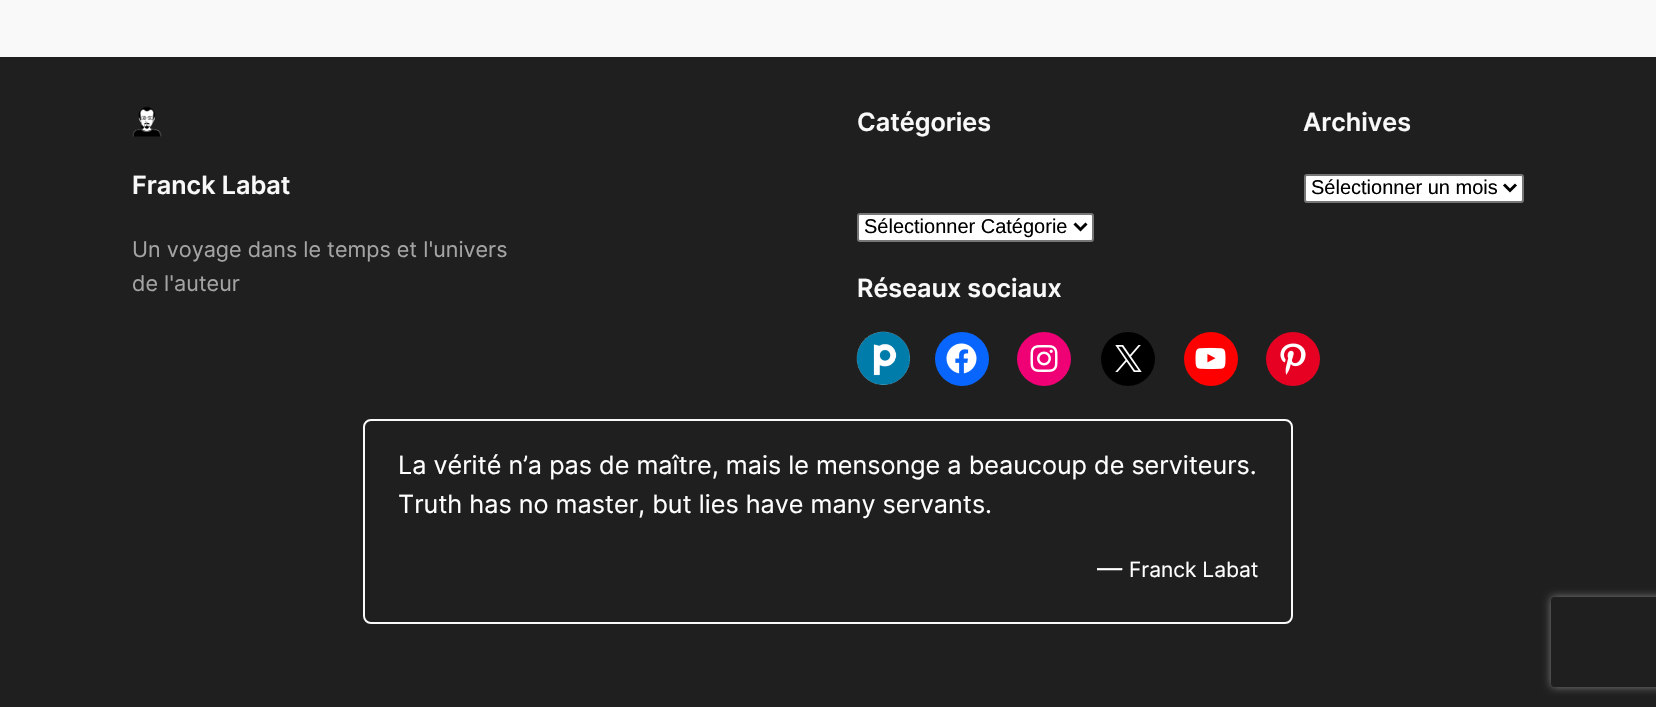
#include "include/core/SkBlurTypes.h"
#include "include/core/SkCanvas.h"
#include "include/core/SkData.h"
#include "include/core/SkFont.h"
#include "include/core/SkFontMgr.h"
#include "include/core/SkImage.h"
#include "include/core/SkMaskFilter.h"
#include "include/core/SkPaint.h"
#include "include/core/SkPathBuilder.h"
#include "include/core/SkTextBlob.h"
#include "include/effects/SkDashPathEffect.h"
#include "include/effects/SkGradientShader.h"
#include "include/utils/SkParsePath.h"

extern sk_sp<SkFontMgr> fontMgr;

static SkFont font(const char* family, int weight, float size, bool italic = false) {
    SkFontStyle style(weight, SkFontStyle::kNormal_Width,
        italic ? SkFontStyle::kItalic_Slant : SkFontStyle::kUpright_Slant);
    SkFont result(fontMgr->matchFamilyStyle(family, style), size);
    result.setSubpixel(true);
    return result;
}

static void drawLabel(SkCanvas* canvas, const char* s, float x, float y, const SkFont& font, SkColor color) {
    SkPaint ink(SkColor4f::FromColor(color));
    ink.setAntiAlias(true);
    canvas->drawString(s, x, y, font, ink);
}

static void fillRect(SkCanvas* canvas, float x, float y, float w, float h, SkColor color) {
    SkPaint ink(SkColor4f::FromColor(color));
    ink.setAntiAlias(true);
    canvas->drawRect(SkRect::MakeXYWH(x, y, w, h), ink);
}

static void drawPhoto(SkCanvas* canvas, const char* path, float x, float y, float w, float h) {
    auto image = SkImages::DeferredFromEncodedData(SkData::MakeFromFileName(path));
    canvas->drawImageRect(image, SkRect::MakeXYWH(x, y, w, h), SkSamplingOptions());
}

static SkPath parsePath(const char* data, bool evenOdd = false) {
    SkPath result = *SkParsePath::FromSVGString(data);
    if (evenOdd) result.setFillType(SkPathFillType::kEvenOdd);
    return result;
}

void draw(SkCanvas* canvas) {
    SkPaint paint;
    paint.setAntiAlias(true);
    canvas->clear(0xFFF9F9F9);
    fillRect(canvas, 0, 57, 1656, 650, 0xFF1F1F1F);
    drawPhoto(canvas, "assets/img1.png", 132, 106, 30, 31);
    SkFont font1 = font("Inter", 600, 25.2f);
    drawLabel(canvas, "Franck Labat", 132, 194, font1, 0xFFF9F9F9);
    SkFont font2 = font("Inter", 400, 21.6f);
    drawLabel(canvas, "Un voyage dans le temps et l'univers", 132, 257, font2, 0xFFA4A4A4);
    drawLabel(canvas, "de l'auteur", 132, 291, font2, 0xFFA4A4A4);
    drawLabel(canvas, "Catégories", 857, 131, font1, 0xFFF9F9F9);
    paint.setColor(0xFFFFFFFF);
    canvas->drawRoundRect(SkRect::MakeXYWH(858, 214, 235, 27), 2, 2, paint);
    paint.setStroke(true);
    paint.setStrokeWidth(2);
    paint.setColor(0xFF767676);
    canvas->drawRoundRect(SkRect::MakeXYWH(858, 214, 235, 27), 2, 2, paint);
    paint.setStrokeWidth(3);
    paint.setColor(0xFF000000);
    canvas->drawPath(parsePath("M1074.5 223.5L1080.5 229.5L1086.5 223.5"), paint);
    SkFont font3 = font("Liberation Sans", 400, 20);
    drawLabel(canvas, "Sélectionner Catégorie", 864, 233, font3, 0xFF000000);
    drawLabel(canvas, "Archives", 1303, 131, font1, 0xFFF9F9F9);
    paint.setStroke(false);
    paint.setColor(0xFFFFFFFF);
    canvas->drawRoundRect(SkRect::MakeXYWH(1305, 175, 218, 27), 2, 2, paint);
    paint.setStroke(true);
    paint.setStrokeWidth(2);
    paint.setColor(0xFF767676);
    canvas->drawRoundRect(SkRect::MakeXYWH(1305, 175, 218, 27), 2, 2, paint);
    paint.setStrokeWidth(3);
    paint.setColor(0xFF000000);
    canvas->drawPath(parsePath("M1504 184.5L1510 190.5L1516 184.5"), paint);
    drawLabel(canvas, "Sélectionner un mois", 1311, 194, font3, 0xFF000000);
    drawLabel(canvas, "Réseaux sociaux", 857, 297, font1, 0xFFF9F9F9);
    drawPhoto(canvas, "assets/img2.png", 856, 331, 54, 54);
    paint.setStroke(false);
    paint.setColor(0xFF0866FF);
    canvas->drawCircle(962, 359, 27, paint);
    drawPhoto(canvas, "assets/img3.png", 946, 343, 31, 31);
    paint.setColor(0xFFF00075);
    canvas->drawCircle(1044, 359, 27, paint);
    drawPhoto(canvas, "assets/img4.png", 1030, 345, 28, 27);
    paint.setColor(0xFF000000);
    canvas->drawCircle(1128, 359, 27, paint);
    drawPhoto(canvas, "assets/img5.png", 1115, 345, 27, 27);
    paint.setColor(0xFFFF0000);
    canvas->drawCircle(1211, 359, 27, paint);
    drawPhoto(canvas, "assets/img6.png", 1195, 347, 31, 23);
    paint.setColor(0xFFE60122);
    canvas->drawCircle(1293, 359, 27, paint);
    drawPhoto(canvas, "assets/img7.png", 1280, 343, 26, 32);
    paint.setStroke(true);
    paint.setStrokeWidth(2);
    paint.setColor(0xFFF9F9F9);
    canvas->drawRoundRect(SkRect::MakeXYWH(364, 420, 928, 203), 7, 7, paint);
    SkFont font4 = font("Inter", 400, 25.2f);
    drawLabel(canvas, "La vérité n’a pas de maître, mais le mensonge a beaucoup de serviteurs.", 398, 474, font4, 0xFFFFFFFF);
    drawLabel(canvas, "Truth has no master, but lies have many servants.", 398, 513, font4, 0xFFFFFFFF);
    drawLabel(canvas, "—", 1097, 577, font4, 0xFFFFFFFF);
    SkFont font5 = font("Inter", 400, 21);
    drawLabel(canvas, "Franck Labat", 1129, 577, font5, 0xFFFFFFFF);
    canvas->save();
    canvas->clipPath(parsePath("M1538 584H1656V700H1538ZM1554 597H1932C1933.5 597 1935 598.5 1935 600V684C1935 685.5 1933.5 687 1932 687H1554C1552.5 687 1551 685.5 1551 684V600C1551 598.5 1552.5 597 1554 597Z", true), true);
    paint.setStroke(false);
    paint.setColor(0xFF808080);
    paint.setMaskFilter(SkMaskFilter::MakeBlur(kNormal_SkBlurStyle, 4));
    canvas->drawRoundRect(SkRect::MakeXYWH(1551, 597, 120, 90), 3, 3, paint);
    paint.setMaskFilter(nullptr);
    canvas->restore();
}
